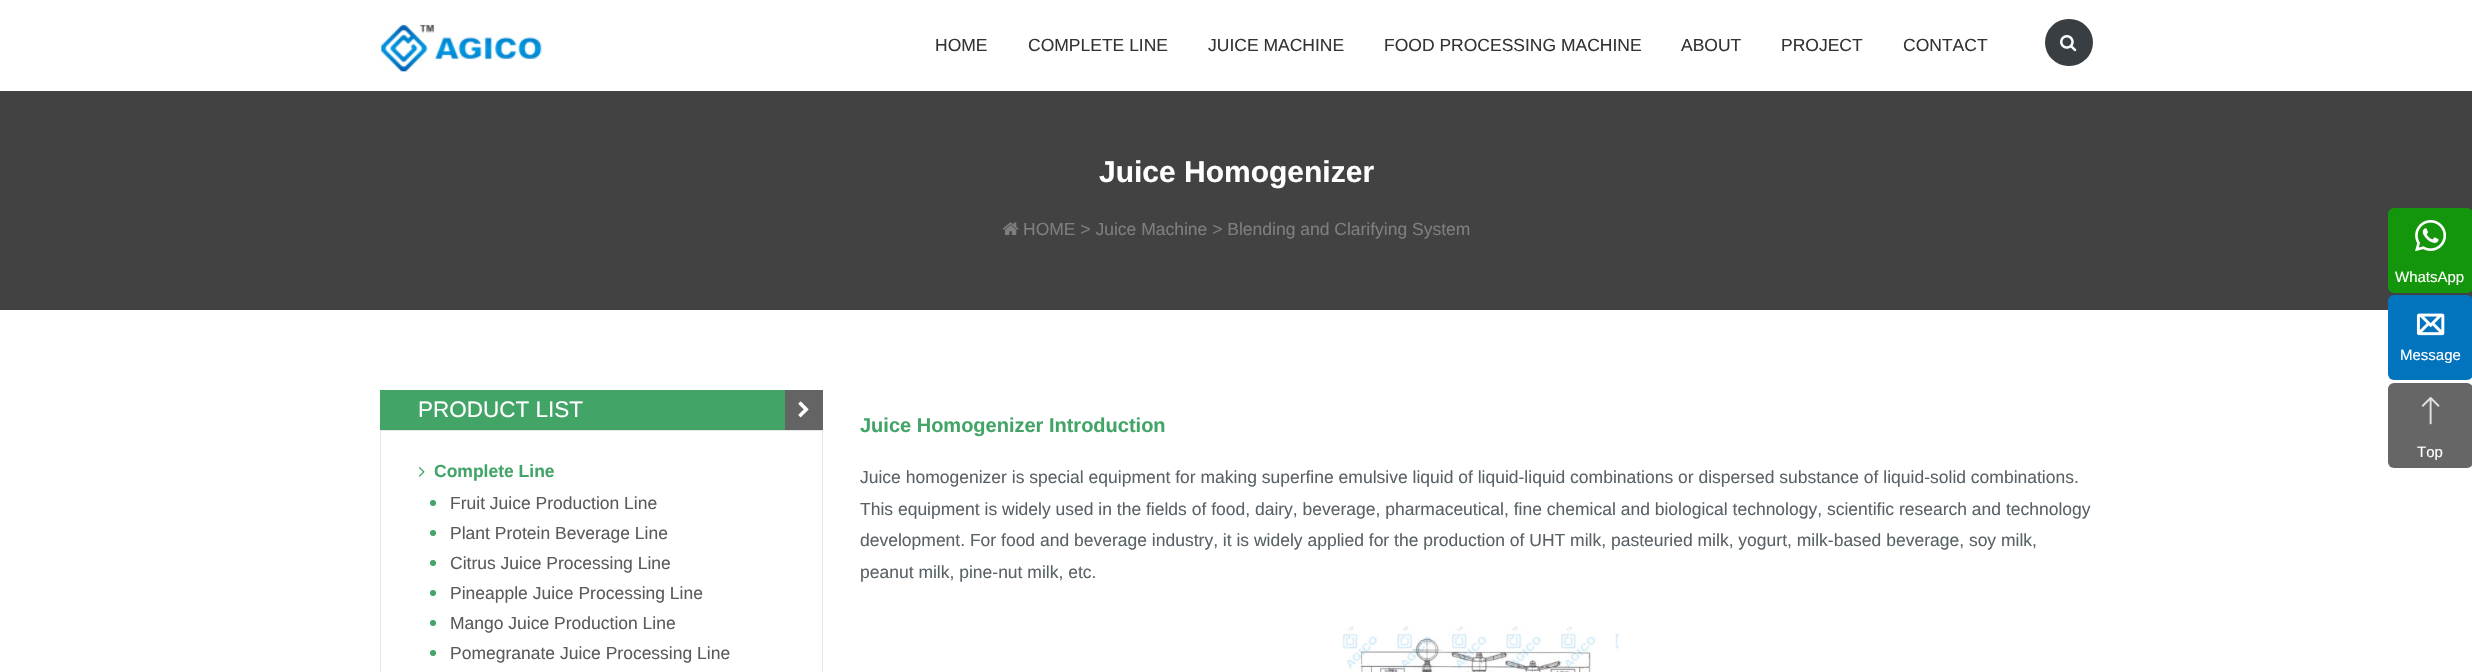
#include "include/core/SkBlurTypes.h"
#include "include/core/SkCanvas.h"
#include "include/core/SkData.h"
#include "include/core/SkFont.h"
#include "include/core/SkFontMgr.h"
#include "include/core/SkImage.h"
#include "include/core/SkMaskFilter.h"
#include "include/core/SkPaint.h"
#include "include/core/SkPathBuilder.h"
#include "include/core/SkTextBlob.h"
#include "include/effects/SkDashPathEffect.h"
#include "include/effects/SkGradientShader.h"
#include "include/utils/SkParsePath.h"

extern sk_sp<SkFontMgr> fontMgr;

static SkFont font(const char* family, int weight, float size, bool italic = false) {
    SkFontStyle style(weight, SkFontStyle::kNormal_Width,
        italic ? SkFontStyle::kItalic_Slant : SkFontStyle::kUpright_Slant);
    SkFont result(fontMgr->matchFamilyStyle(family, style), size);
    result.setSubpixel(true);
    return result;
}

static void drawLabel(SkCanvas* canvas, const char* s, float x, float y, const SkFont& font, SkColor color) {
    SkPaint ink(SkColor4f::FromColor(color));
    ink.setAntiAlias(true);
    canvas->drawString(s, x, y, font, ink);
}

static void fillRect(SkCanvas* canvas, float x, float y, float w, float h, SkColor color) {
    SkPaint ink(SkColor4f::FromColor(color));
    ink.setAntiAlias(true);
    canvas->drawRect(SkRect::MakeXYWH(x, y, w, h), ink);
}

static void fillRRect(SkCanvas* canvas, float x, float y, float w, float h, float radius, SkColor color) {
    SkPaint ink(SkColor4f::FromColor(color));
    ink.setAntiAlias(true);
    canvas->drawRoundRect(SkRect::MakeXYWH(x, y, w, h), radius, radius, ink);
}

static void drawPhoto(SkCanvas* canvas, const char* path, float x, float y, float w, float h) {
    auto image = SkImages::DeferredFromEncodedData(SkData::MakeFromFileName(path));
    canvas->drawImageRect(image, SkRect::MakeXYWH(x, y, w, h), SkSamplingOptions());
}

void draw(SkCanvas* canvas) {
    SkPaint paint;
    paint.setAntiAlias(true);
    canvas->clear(0xFFFFFFFF);
    drawPhoto(canvas, "assets/img1.png", 381, 24, 161, 48);
    SkFont font1 = font("Liberation Sans", 400, 17.5f);
    drawLabel(canvas, "HOME", 935, 51, font1, 0xFF333333);
    drawLabel(canvas, "COMPLETE LINE", 1028, 51, font1, 0xFF333333);
    drawLabel(canvas, "JUICE MACHINE", 1208, 51, font1, 0xFF333333);
    drawLabel(canvas, "FOOD PROCESSING MACHINE", 1384, 51, font1, 0xFF333333);
    drawLabel(canvas, "ABOUT", 1681, 51, font1, 0xFF333333);
    drawLabel(canvas, "PROJECT", 1781, 51, font1, 0xFF333333);
    drawLabel(canvas, "CONTACT", 1903, 51, font1, 0xFF333333);
    fillRRect(canvas, 2045, 19, 48, 47, 23.5f, 0xFF383E42);
    drawPhoto(canvas, "assets/img2.png", 2060, 35, 17, 17);
    fillRect(canvas, 0, 91, 2472, 219, 0xFF424242);
    SkFont font2 = font("Liberation Sans", 700, 30);
    drawLabel(canvas, "Juice Homogenizer", 1099, 182, font2, 0xFFFFFFFF);
    drawPhoto(canvas, "assets/img3.png", 1002, 222, 17, 13);
    drawLabel(canvas, "HOME > Juice Machine > Blending and Clarifying System", 1023, 235, font1, 0xFF7D7F7D);
    fillRRect(canvas, 2388, 208, 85, 85, 6, 0xFF13960C);
    drawPhoto(canvas, "assets/img4.png", 2415, 220, 31, 31);
    SkFont font3 = font("Liberation Sans", 400, 15);
    drawLabel(canvas, "WhatsApp", 2395, 282, font3, 0xFFFFFFFF);
    fillRRect(canvas, 2388, 295, 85, 85, 6, 0xFF0274BE);
    drawPhoto(canvas, "assets/img5.png", 2416, 313, 29, 23);
    drawLabel(canvas, "Message", 2400, 360, font3, 0xFFFFFFFF);
    fillRRect(canvas, 2388, 383, 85, 85, 6, 0xFF666666);
    drawPhoto(canvas, "assets/img6.png", 2421, 397, 19, 28);
    drawLabel(canvas, "Top", 2417, 457, font3, 0xFFFFFFFF);
    fillRect(canvas, 380, 390, 405, 40, 0xFF42A466);
    SkFont font4 = font("Liberation Sans", 400, 22.5f);
    drawLabel(canvas, "PRODUCT LIST", 418, 417, font4, 0xFFFFFFFF);
    fillRect(canvas, 785, 390, 38, 40, 0xFF646464);
    drawPhoto(canvas, "assets/img7.png", 798, 401, 11, 17);
    paint.setStroke(true);
    paint.setStrokeWidth(1);
    paint.setColor(0xFFE5E5E5);
    canvas->drawRect(SkRect::MakeXYWH(380.5f, 430.5f, 442, 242), paint);
    drawPhoto(canvas, "assets/img8.png", 418, 467, 7, 10);
    SkFont font5 = font("Liberation Sans", 700, 17.5f);
    drawLabel(canvas, "Complete Line", 434, 477, font5, 0xFF42A466);
    paint.setStroke(false);
    paint.setColor(0xFF42A466);
    canvas->drawCircle(433, 503, 3, paint);
    drawLabel(canvas, "Fruit Juice Production Line", 450, 509, font1, 0xFF5B5B5B);
    canvas->drawCircle(433, 533, 3, paint);
    drawLabel(canvas, "Plant Protein Beverage Line", 450, 539, font1, 0xFF5B5B5B);
    canvas->drawCircle(433, 563, 3, paint);
    drawLabel(canvas, "Citrus Juice Processing Line", 450, 569, font1, 0xFF5B5B5B);
    canvas->drawCircle(433, 593, 3, paint);
    drawLabel(canvas, "Pineapple Juice Processing Line", 450, 599, font1, 0xFF5B5B5B);
    canvas->drawCircle(433, 623, 3, paint);
    drawLabel(canvas, "Mango Juice Production Line", 450, 629, font1, 0xFF5B5B5B);
    canvas->drawCircle(433, 653, 3, paint);
    drawLabel(canvas, "Pomegranate Juice Processing Line", 450, 659, font1, 0xFF5B5B5B);
    SkFont font6 = font("Liberation Sans", 700, 20);
    drawLabel(canvas, "Juice Homogenizer Introduction", 860, 432, font6, 0xFF42A466);
    drawLabel(canvas, "Juice homogenizer is special equipment for making superfine emulsive liquid of liquid-liquid combinations or dispersed substance of liquid-solid combinations.", 860, 483, font1, 0xFF596267);
    drawLabel(canvas, "This equipment is widely used in the fields of food, dairy, beverage, pharmaceutical, fine chemical and biological technology, scientific research and technology", 860, 515, font1, 0xFF596267);
    drawLabel(canvas, "development. For food and beverage industry, it is widely applied for the production of UHT milk, pasteuried milk, yogurt, milk-based beverage, soy milk,", 860, 546, font1, 0xFF596267);
    drawLabel(canvas, "peanut milk, pine-nut milk, etc.", 860, 578, font1, 0xFF596267);
    drawPhoto(canvas, "assets/img9.png", 1342, 626, 277, 46);
}
